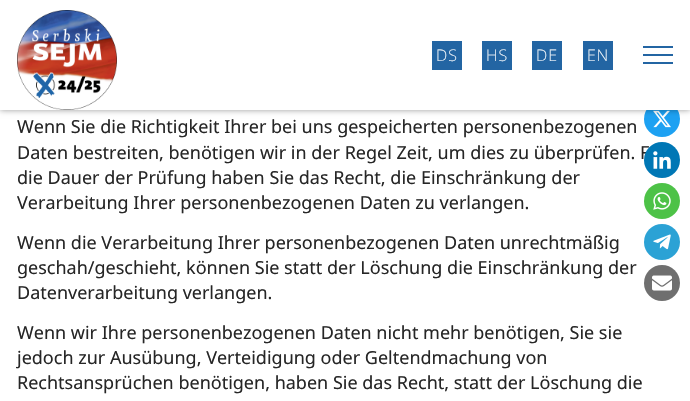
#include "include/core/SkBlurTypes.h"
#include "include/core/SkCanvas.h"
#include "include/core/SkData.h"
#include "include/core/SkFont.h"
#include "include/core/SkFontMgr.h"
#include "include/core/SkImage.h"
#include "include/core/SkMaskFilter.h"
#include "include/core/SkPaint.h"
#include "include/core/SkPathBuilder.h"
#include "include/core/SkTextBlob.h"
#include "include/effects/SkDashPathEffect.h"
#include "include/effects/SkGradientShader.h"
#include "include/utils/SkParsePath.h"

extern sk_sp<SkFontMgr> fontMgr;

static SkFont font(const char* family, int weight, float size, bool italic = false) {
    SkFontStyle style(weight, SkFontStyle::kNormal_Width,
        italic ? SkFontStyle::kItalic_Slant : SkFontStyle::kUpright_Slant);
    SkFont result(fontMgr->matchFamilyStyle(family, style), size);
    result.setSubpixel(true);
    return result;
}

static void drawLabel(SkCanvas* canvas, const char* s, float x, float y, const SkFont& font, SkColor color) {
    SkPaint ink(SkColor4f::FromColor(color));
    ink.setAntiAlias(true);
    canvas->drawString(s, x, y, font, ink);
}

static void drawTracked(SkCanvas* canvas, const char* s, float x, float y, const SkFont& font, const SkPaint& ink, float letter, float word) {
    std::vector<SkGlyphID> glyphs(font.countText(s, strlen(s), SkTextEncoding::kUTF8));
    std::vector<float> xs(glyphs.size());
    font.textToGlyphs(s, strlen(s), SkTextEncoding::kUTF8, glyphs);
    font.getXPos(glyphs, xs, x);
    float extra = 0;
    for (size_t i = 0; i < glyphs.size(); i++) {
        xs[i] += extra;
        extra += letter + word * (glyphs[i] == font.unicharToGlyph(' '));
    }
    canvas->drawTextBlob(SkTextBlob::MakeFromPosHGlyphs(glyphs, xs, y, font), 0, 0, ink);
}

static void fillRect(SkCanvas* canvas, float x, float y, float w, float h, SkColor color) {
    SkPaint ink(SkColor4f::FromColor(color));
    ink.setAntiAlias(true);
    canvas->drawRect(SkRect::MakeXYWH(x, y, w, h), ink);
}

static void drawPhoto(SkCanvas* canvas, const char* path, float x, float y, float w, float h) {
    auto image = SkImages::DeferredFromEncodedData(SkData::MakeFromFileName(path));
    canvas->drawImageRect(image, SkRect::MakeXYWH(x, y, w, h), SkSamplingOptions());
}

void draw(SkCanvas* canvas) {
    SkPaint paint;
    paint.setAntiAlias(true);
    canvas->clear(0xFFFFFFFF);
    paint.setColor(0xFF1DA1F2);
    canvas->drawCircle(662, 119, 18, paint);
    drawPhoto(canvas, "assets/img2.png", 653, 110, 18, 18);
    paint.setColor(0x66000000);
    paint.setMaskFilter(SkMaskFilter::MakeBlur(kNormal_SkBlurStyle, 3));
    canvas->drawRect(SkRect::MakeXYWH(0, 0, 690, 110), paint);
    paint.setMaskFilter(nullptr);
    fillRect(canvas, 0, 0, 690, 110, 0xFFFFFFFF);
    drawPhoto(canvas, "assets/img1.png", 17, 10, 100, 100);
    fillRect(canvas, 432, 41, 30, 29, 0xFF2365A3);
    SkFont font1 = font("Noto Sans", 200, 16);
    paint.setColor(0xFFFFFFFF);
    drawTracked(canvas, "DS", 436, 61, font1, paint, 1, 0);
    fillRect(canvas, 482, 41, 30, 29, 0xFF2365A3);
    drawTracked(canvas, "HS", 486, 61, font1, paint, 1, 0);
    fillRect(canvas, 532, 41, 30, 29, 0xFF2365A3);
    drawTracked(canvas, "DE", 536, 61, font1, paint, 1, 0);
    fillRect(canvas, 583, 41, 30, 29, 0xFF2365A3);
    drawTracked(canvas, "EN", 587, 61, font1, paint, 1, 0);
    fillRect(canvas, 643, 46, 30, 2, 0xFF2365A3);
    fillRect(canvas, 643, 54, 30, 2, 0xFF2365A3);
    fillRect(canvas, 643, 62, 30, 2, 0xFF2365A3);
    SkFont font2 = font("Noto Sans", 400, 18);
    drawLabel(canvas, "Wenn Sie die Richtigkeit Ihrer bei uns gespeicherten personenbezogenen", 17, 133, font2, 0xFF262626);
    drawLabel(canvas, "Daten bestreiten, benötigen wir in der Regel Zeit, um dies zu überprüfen. F", 17, 159, font2, 0xFF262626);
    drawLabel(canvas, "die Dauer der Prüfung haben Sie das Recht, die Einschränkung der", 17, 184, font2, 0xFF262626);
    drawLabel(canvas, "Verarbeitung Ihrer personenbezogenen Daten zu verlangen.", 17, 209, font2, 0xFF262626);
    drawLabel(canvas, "Wenn die Verarbeitung Ihrer personenbezogenen Daten unrechtmäßig", 17, 249, font2, 0xFF262626);
    drawLabel(canvas, "geschah/geschieht, können Sie statt der Löschung die Einschränkung der", 17, 274, font2, 0xFF262626);
    drawLabel(canvas, "Datenverarbeitung verlangen.", 17, 299, font2, 0xFF262626);
    drawLabel(canvas, "Wenn wir Ihre personenbezogenen Daten nicht mehr benötigen, Sie sie", 17, 339, font2, 0xFF262626);
    drawLabel(canvas, "jedoch zur Ausübung, Verteidigung oder Geltendmachung von", 17, 364, font2, 0xFF262626);
    drawLabel(canvas, "Rechtsansprüchen benötigen, haben Sie das Recht, statt der Löschung die", 17, 389, font2, 0xFF262626);
    paint.setColor(0xFF0077B5);
    canvas->drawCircle(662, 160, 18, paint);
    drawPhoto(canvas, "assets/img3.png", 653, 151, 18, 18);
    paint.setColor(0xFF4DC247);
    canvas->drawCircle(662, 201, 18, paint);
    drawPhoto(canvas, "assets/img4.png", 653, 192, 18, 18);
    paint.setColor(0xFF2BA2D5);
    canvas->drawCircle(662, 242, 18, paint);
    drawPhoto(canvas, "assets/img5.png", 653, 234, 18, 16);
    paint.setColor(0xFF6F6F6F);
    canvas->drawCircle(662, 283, 18, paint);
    drawPhoto(canvas, "assets/img6.png", 652, 275, 20, 16);
}
